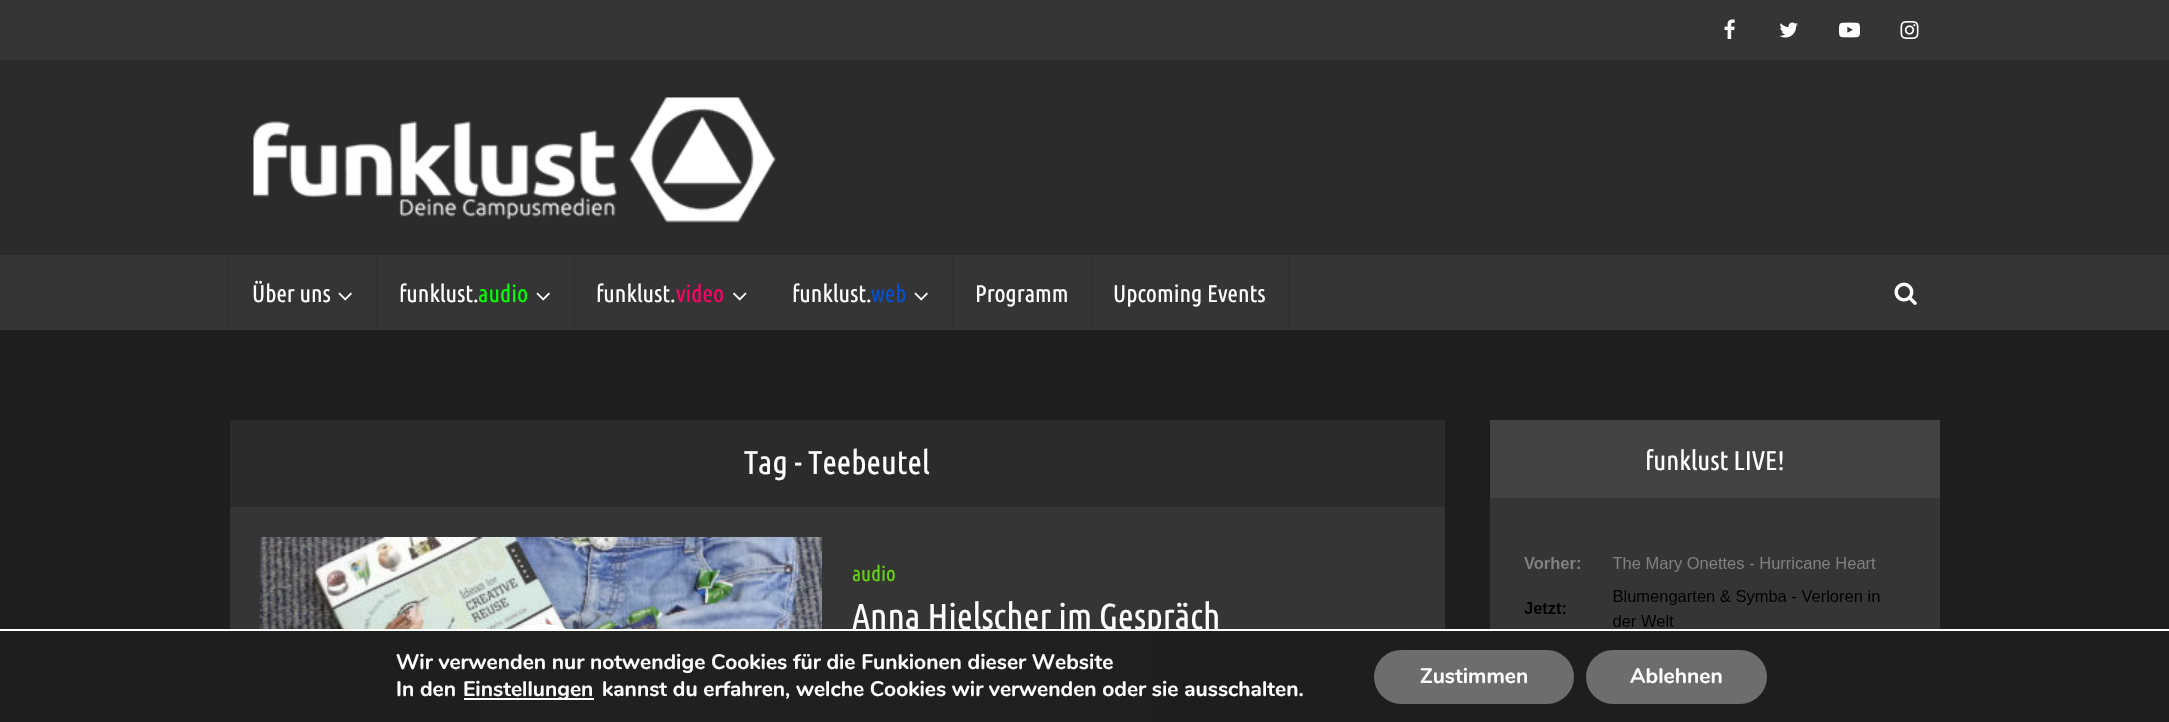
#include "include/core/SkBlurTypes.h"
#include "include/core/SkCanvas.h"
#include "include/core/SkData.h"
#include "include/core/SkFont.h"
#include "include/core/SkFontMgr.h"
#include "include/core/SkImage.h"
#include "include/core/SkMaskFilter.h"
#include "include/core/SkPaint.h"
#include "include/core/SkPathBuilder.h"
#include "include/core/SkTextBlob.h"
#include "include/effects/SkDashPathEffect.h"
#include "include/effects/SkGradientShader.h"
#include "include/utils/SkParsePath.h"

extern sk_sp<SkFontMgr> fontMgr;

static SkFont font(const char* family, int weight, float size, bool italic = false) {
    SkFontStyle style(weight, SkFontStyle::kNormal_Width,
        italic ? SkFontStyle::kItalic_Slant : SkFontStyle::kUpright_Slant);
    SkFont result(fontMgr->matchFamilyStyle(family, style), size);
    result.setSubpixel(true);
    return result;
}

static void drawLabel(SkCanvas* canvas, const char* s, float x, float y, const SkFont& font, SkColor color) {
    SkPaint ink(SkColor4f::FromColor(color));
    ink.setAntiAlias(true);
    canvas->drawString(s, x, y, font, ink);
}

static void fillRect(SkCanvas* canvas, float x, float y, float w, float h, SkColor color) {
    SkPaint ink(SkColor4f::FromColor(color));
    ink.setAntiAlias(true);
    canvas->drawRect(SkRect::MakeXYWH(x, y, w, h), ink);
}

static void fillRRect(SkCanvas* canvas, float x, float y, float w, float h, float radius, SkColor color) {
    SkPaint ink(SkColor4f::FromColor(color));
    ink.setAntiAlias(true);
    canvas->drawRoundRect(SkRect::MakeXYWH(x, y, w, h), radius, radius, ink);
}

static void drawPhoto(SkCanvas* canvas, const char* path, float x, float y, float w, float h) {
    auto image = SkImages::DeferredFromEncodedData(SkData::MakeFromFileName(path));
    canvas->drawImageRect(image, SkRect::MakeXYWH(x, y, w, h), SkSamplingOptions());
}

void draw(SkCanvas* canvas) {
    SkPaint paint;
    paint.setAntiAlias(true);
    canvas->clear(0xFF1E1E1E);
    fillRect(canvas, 0, 60, 2169, 195, 0xFF2B2B2B);
    fillRect(canvas, 0, 0, 2169, 60, 0xFF353535);
    drawPhoto(canvas, "assets/img1.png", 1724, 19, 11, 20);
    drawPhoto(canvas, "assets/img2.png", 1779, 22, 19, 16);
    drawPhoto(canvas, "assets/img3.png", 1839, 22, 21, 16);
    drawPhoto(canvas, "assets/img4.png", 1900, 21, 19, 18);
    drawPhoto(canvas, "assets/img5.png", 253, 97, 523, 126);
    fillRect(canvas, 0, 255, 2169, 75, 0xFF353535);
    fillRect(canvas, 376, 255, 2, 75, 0xFF323232);
    fillRect(canvas, 228, 255, 2, 75, 0xFF323232);
    SkFont font1 = font("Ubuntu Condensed", 400, 24);
    drawLabel(canvas, "Über uns", 252, 302, font1, 0xFFFFFFFF);
    drawPhoto(canvas, "assets/img6.png", 338, 292, 14, 9);
    fillRect(canvas, 573, 255, 2, 75, 0xFF323232);
    drawLabel(canvas, "funklust.", 399, 302, font1, 0xFFFFFFFF);
    drawLabel(canvas, "audio", 478, 302, font1, 0xFF00FF00);
    drawPhoto(canvas, "assets/img6.png", 536, 292, 14, 9);
    fillRect(canvas, 770, 255, 1, 75, 0xFF323232);
    drawLabel(canvas, "funklust.", 596, 302, font1, 0xFFFFFFFF);
    drawLabel(canvas, "video", 676, 302, font1, 0xFFFF0066);
    drawPhoto(canvas, "assets/img7.png", 733, 292, 14, 9);
    fillRect(canvas, 952, 255, 2, 75, 0xFF323232);
    drawLabel(canvas, "funklust.", 792, 302, font1, 0xFFFFFFFF);
    drawLabel(canvas, "web", 871, 302, font1, 0xFF0550D1);
    drawPhoto(canvas, "assets/img6.png", 914, 292, 14, 9);
    fillRect(canvas, 1090, 255, 2, 75, 0xFF323232);
    drawLabel(canvas, "Programm", 975, 302, font1, 0xFFFFFFFF);
    fillRect(canvas, 1288, 255, 2, 75, 0xFF323232);
    drawLabel(canvas, "Upcoming Events", 1113, 302, font1, 0xFFFFFFFF);
    fillRect(canvas, 1940, 255, 1, 75, 0xFF323232);
    fillRect(canvas, 1871, 255, 1, 75, 0xFF323232);
    drawPhoto(canvas, "assets/img8.png", 1894, 282, 23, 23);
    fillRect(canvas, 230, 507, 1215, 122, 0xFF353535);
    fillRect(canvas, 230, 420, 1215, 87, 0xFF2B2B2B);
    SkFont font2 = font("Ubuntu Condensed", 400, 33);
    drawLabel(canvas, "Tag - Teebeutel", 744, 474, font2, 0xFFFFFFFF);
    drawPhoto(canvas, "assets/img9.png", 260, 537, 562, 92);
    paint.setColor(0x33000000);
    paint.setMaskFilter(SkMaskFilter::MakeBlur(kNormal_SkBlurStyle, 2));
    canvas->drawRoundRect(SkRect::MakeXYWH(482, 626, 120, 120), 60, 60, paint);
    paint.setMaskFilter(nullptr);
    paint.setStroke(true);
    paint.setStrokeWidth(8);
    paint.setColor(0xFFFFFFFF);
    canvas->drawCircle(542, 684, 56, paint);
    SkFont font3 = font("Ubuntu Condensed", 400, 21);
    drawLabel(canvas, "audio", 852, 581, font3, 0xFF63D611);
    SkFont font4 = font("Ubuntu Condensed", 400, 36);
    drawLabel(canvas, "Anna Hielscher im Gespräch", 852, 629, font4, 0xFFFFFFFF);
    fillRect(canvas, 1490, 498, 450, 131, 0xFF353535);
    fillRect(canvas, 1490, 420, 450, 78, 0xFF424242);
    SkFont font5 = font("Ubuntu Condensed", 400, 27);
    drawLabel(canvas, "funklust LIVE!", 1645, 470, font5, 0xFFFFFFFF);
    drawPhoto(canvas, "assets/img10.png", 1524, 557, 356, 70);
    fillRect(canvas, 479, 631, 673, 91, 0xFF202020);
    fillRect(canvas, 0, 629, 2169, 2, 0xFFFFFFFF);
    SkFont font6 = font("Nunito", 700, 21);
    drawLabel(canvas, "Wir verwenden nur notwendige Cookies für die Funkionen dieser Website", 396, 669, font6, 0xFFFFFFFF);
    drawLabel(canvas, "In den", 396, 696, font6, 0xFFFFFFFF);
    fillRect(canvas, 464, 698, 130, 2, 0xFFFFFFFF);
    drawLabel(canvas, "Einstellungen", 463, 696, font6, 0xFFFFFFFF);
    drawLabel(canvas, "kannst du erfahren, welche Cookies wir verwenden oder sie ausschalten.", 602, 696, font6, 0xFFFFFFFF);
    fillRRect(canvas, 1374, 650, 200, 54, 27, 0xFF6D6D6D);
    drawLabel(canvas, "Zustimmen", 1420, 683, font6, 0xFFFFFFFF);
    fillRRect(canvas, 1586, 650, 181, 54, 27, 0xFF6D6D6D);
    drawLabel(canvas, "Ablehnen", 1630, 683, font6, 0xFFFFFFFF);
}
